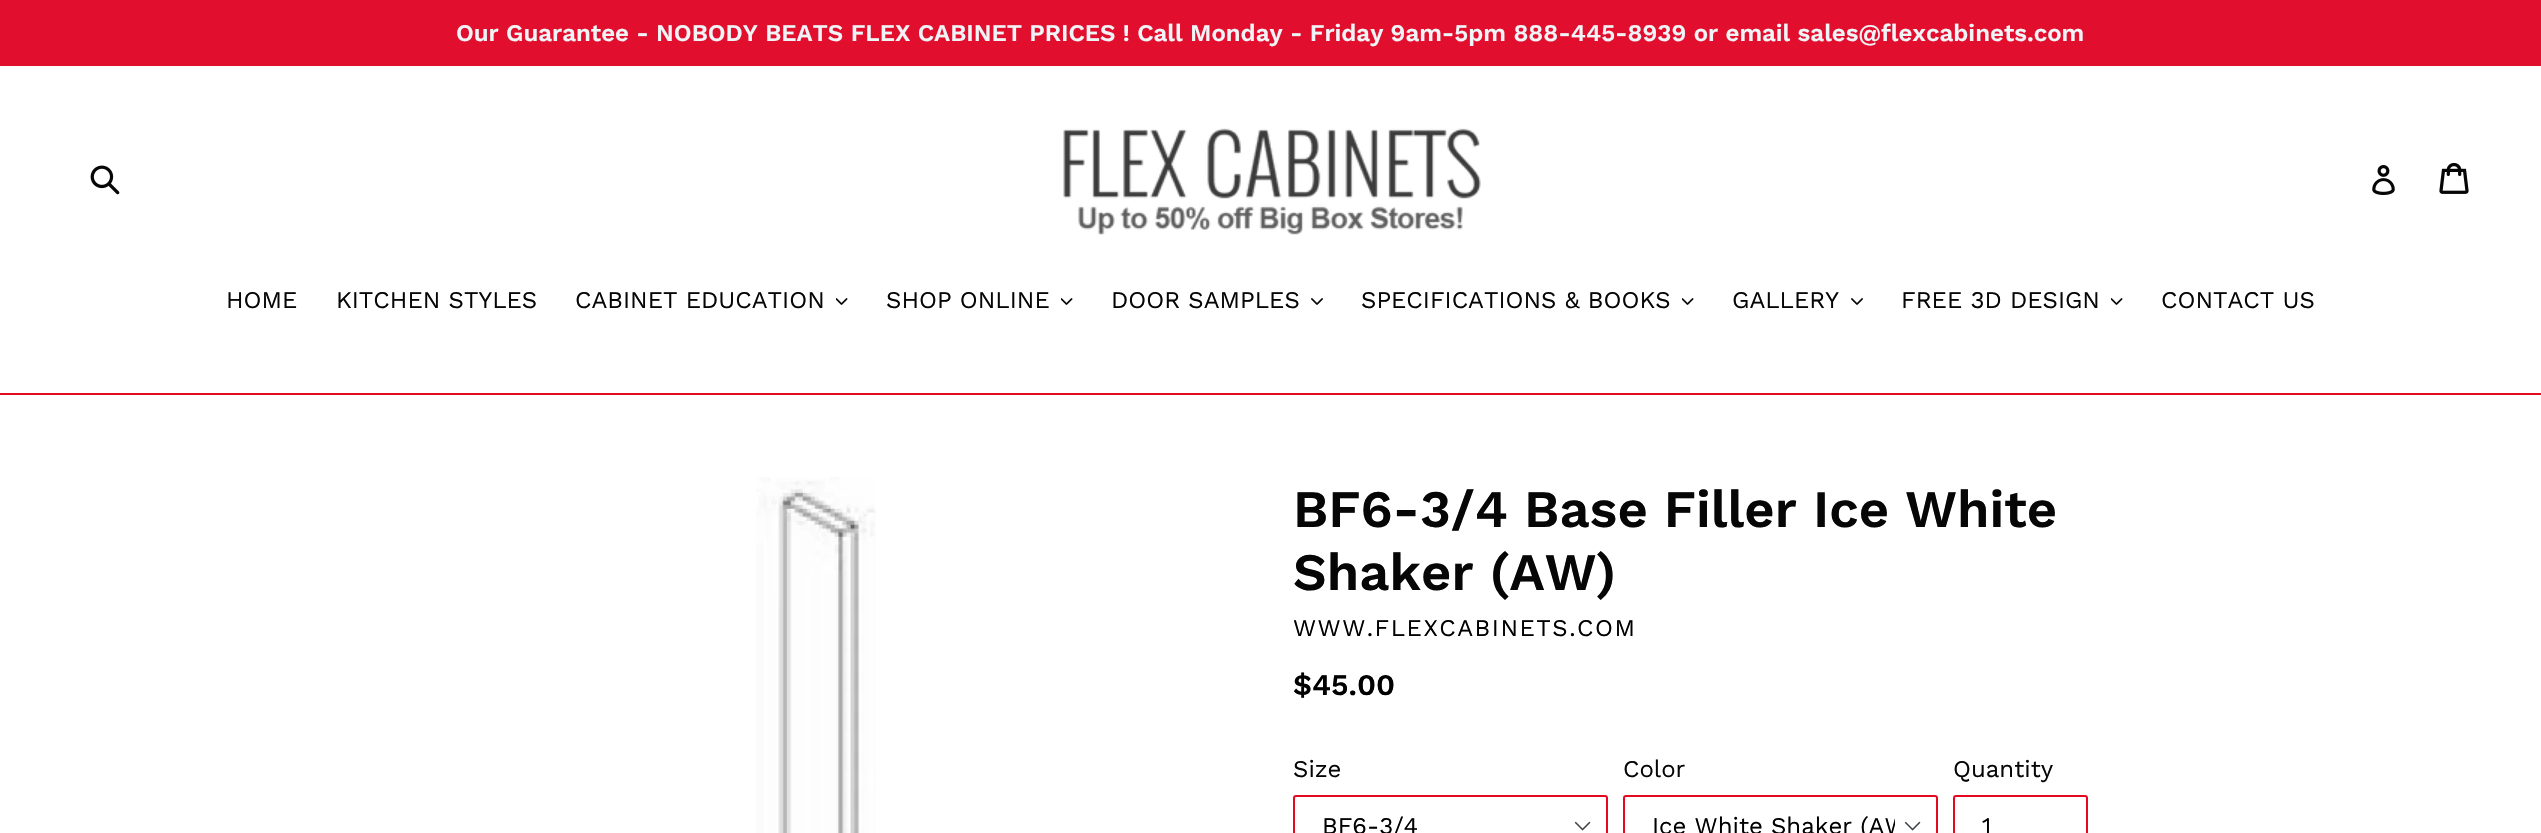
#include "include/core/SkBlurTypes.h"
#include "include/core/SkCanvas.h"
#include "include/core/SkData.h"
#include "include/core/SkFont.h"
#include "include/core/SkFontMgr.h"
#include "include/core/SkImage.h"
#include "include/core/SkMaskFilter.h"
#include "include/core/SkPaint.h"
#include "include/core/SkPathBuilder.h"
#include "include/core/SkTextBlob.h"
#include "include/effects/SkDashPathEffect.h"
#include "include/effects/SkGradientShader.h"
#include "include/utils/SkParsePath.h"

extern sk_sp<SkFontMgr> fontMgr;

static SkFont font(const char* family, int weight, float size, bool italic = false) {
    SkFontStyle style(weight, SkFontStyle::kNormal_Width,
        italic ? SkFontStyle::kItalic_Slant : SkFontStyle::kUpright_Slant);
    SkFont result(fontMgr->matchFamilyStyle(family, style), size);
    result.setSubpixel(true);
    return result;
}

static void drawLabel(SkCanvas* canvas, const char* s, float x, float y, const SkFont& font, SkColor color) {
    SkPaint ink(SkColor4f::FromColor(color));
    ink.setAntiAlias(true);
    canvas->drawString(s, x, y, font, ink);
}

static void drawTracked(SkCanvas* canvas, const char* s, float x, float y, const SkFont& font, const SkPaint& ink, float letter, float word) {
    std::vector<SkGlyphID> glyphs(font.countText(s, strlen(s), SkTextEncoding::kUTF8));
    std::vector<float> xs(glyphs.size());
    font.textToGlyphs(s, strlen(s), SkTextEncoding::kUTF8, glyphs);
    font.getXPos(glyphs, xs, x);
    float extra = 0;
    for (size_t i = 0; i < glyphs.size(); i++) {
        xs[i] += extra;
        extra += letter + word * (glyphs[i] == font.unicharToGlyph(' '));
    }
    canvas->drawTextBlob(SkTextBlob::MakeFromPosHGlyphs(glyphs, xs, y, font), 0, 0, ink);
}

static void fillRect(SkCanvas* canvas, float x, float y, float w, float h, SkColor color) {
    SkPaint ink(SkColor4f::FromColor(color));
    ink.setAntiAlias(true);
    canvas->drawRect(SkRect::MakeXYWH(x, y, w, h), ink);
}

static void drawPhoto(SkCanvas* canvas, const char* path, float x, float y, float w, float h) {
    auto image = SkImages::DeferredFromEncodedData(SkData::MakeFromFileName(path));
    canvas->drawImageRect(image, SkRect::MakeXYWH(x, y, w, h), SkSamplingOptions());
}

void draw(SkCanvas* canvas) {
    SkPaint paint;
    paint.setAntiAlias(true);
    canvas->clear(0xFFFFFFFF);
    fillRect(canvas, 0, 0, 2541, 66, 0xFFE10F2D);
    SkFont font1 = font("Work Sans", 600, 24);
    drawLabel(canvas, "Our Guarantee - NOBODY BEATS FLEX CABINET PRICES ! Call Monday - Friday 9am-5pm 888-445-8939 or email sales@flexcabinets.com", 456, 41, font1, 0xFFF0F4F7);
    drawPhoto(canvas, "assets/img1.png", 90, 165, 30, 30);
    drawPhoto(canvas, "assets/img2.png", 1063, 128, 418, 107);
    drawPhoto(canvas, "assets/img3.png", 2372, 165, 23, 30);
    drawPhoto(canvas, "assets/img4.png", 2439, 162, 30, 32);
    fillRect(canvas, 0, 393, 2541, 2, 0xFFE30A20);
    SkFont font2 = font("Work Sans", 400, 24);
    drawLabel(canvas, "HOME", 226, 308, font2, 0xFF060607);
    drawLabel(canvas, "KITCHEN STYLES", 336, 308, font2, 0xFF060607);
    drawLabel(canvas, "CABINET EDUCATION", 575, 308, font2, 0xFF060607);
    drawPhoto(canvas, "assets/img5.png", 836, 298, 12, 7);
    drawLabel(canvas, "SHOP ONLINE", 886, 308, font2, 0xFF060607);
    drawPhoto(canvas, "assets/img5.png", 1061, 298, 12, 7);
    drawLabel(canvas, "DOOR SAMPLES", 1111, 308, font2, 0xFF060607);
    drawPhoto(canvas, "assets/img6.png", 1311, 298, 12, 7);
    drawLabel(canvas, "SPECIFICATIONS & BOOKS", 1361, 308, font2, 0xFF060607);
    drawPhoto(canvas, "assets/img5.png", 1682, 298, 12, 7);
    drawLabel(canvas, "GALLERY", 1732, 308, font2, 0xFF060607);
    drawPhoto(canvas, "assets/img6.png", 1851, 298, 12, 7);
    drawLabel(canvas, "FREE 3D DESIGN", 1901, 308, font2, 0xFF060607);
    drawPhoto(canvas, "assets/img5.png", 2111, 298, 12, 7);
    drawLabel(canvas, "CONTACT US", 2161, 308, font2, 0xFF060607);
    drawPhoto(canvas, "assets/img7.png", 756, 477, 120, 356);
    SkFont font3 = font("Work Sans", 600, 52.5f);
    drawLabel(canvas, "BF6-3/4 Base Filler Ice White", 1293, 527, font3, 0xFF060607);
    drawLabel(canvas, "Shaker (AW)", 1293, 590, font3, 0xFF060607);
    paint.setColor(0xFF000000);
    drawTracked(canvas, "WWW.FLEXCABINETS.COM", 1293, 636, font2, paint, 1.5f, 0);
    SkFont font4 = font("Work Sans", 600, 30);
    drawLabel(canvas, "$45.00", 1293, 695, font4, 0xFF000000);
    drawLabel(canvas, "Size", 1293, 777, font2, 0xFF060607);
    drawPhoto(canvas, "assets/img8.png", 1574, 821, 17, 10);
    paint.setStroke(true);
    paint.setStrokeWidth(2);
    paint.setColor(0xFFE30A20);
    canvas->drawRoundRect(SkRect::MakeXYWH(1294, 796, 313, 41), 2, 2, paint);
    drawLabel(canvas, "BF6-3/4", 1322, 834, font2, 0xFF000000);
    drawLabel(canvas, "Color", 1623, 777, font2, 0xFF060607);
    drawPhoto(canvas, "assets/img8.png", 1904, 821, 17, 10);
    canvas->drawRoundRect(SkRect::MakeXYWH(1624, 796, 313, 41), 2, 2, paint);
    canvas->save();
    canvas->clipRect(SkRect::MakeXYWH(1652, 812, 243, 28));
    drawLabel(canvas, "Ice White Shaker (AW", 1652, 834, font2, 0xFF000000);
    canvas->restore();
    drawLabel(canvas, "Quantity", 1953, 777, font2, 0xFF060607);
    canvas->drawRoundRect(SkRect::MakeXYWH(1954, 796, 133, 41), 2, 2, paint);
    drawLabel(canvas, "1", 1982, 834, font2, 0xFF000000);
}
